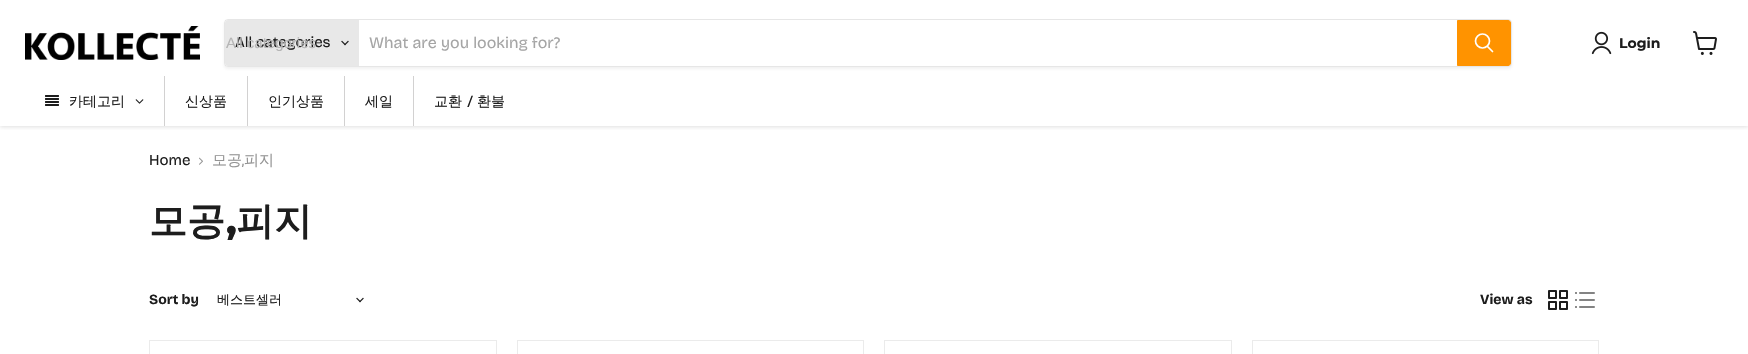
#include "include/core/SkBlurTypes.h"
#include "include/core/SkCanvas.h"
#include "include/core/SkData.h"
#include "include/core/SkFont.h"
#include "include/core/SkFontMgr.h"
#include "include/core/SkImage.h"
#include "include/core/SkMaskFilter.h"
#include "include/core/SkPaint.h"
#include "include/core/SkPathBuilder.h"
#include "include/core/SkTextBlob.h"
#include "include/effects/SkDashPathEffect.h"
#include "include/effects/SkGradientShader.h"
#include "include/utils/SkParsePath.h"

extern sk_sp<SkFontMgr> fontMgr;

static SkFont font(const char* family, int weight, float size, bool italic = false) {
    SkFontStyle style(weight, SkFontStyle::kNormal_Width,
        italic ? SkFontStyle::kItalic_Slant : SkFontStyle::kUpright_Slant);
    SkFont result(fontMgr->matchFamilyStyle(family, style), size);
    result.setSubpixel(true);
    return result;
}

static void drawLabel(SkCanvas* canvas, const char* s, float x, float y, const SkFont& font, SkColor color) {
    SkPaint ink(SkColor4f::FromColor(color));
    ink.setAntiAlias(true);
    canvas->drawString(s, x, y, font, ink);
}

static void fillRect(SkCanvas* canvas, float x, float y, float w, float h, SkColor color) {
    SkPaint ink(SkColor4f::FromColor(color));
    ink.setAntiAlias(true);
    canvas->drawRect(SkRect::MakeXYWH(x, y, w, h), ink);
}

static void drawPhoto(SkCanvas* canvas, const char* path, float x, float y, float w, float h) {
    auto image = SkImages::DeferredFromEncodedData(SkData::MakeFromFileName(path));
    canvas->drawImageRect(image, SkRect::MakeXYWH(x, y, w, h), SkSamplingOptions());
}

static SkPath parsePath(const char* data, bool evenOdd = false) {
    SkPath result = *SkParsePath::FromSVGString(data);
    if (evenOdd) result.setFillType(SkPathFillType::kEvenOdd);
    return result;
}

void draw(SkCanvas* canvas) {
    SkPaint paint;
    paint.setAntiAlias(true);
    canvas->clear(0xFFFFFFFF);
    canvas->save();
    canvas->clipRect(SkRect::MakeXYWH(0, 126, 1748, 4));
    paint.setColor(0x40808080);
    paint.setMaskFilter(SkMaskFilter::MakeBlur(kNormal_SkBlurStyle, 2));
    canvas->drawRect(SkRect::MakeXYWH(0, 1, 1748, 126), paint);
    paint.setMaskFilter(nullptr);
    canvas->restore();
    drawPhoto(canvas, "assets/img1.png", 25, 26, 175, 34);
    canvas->save();
    canvas->clipPath(parsePath("M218 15H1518V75H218ZM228 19H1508C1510 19 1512 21 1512 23V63C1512 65 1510 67 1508 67H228C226 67 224 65 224 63V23C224 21 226 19 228 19Z", true), true);
    paint.setColor(0x1C808080);
    paint.setMaskFilter(SkMaskFilter::MakeBlur(kNormal_SkBlurStyle, 1.5f));
    canvas->drawRoundRect(SkRect::MakeXYWH(224, 21, 1288, 48), 4, 4, paint);
    paint.setMaskFilter(nullptr);
    canvas->restore();
    paint.setStroke(true);
    paint.setStrokeWidth(1);
    paint.setColor(0x33808080);
    canvas->drawRoundRect(SkRect::MakeXYWH(224.5f, 19.5f, 1287, 47), 3.5f, 3.5f, paint);
    paint.setStroke(false);
    paint.setColor(0xFFE8E8E8);
    canvas->drawPath(parsePath("M228 20H359V66H228C226.5 66 225 64.5 225 63V23C225 21.5 226.5 20 228 20Z"), paint);
    SkFont font1 = font("Bricolage Grotesque", 400, 15);
    drawLabel(canvas, "All categories", 235, 47, font1, 0xFF1D1D1D);
    SkFont font2 = font("Liberation Sans", 400, 15);
    drawLabel(canvas, "All categories", 226, 48, font2, 0xFFB5B5B5);
    drawPhoto(canvas, "assets/img2.png", 341, 40, 8, 6);
    SkFont font3 = font("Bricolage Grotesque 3", 400, 16);
    drawLabel(canvas, "What are you looking for?", 369, 48, font3, 0xFFA5A5A5);
    paint.setColor(0xFFFF9300);
    canvas->drawPath(parsePath("M1457.5 20.5H1508C1509.5 20.5 1510.5 21.5 1510.5 23V63C1510.5 64.5 1509.5 65.5 1508 65.5H1457.5Z"), paint);
    paint.setStroke(true);
    canvas->drawPath(parsePath("M1457.5 20.5H1508C1509.5 20.5 1510.5 21.5 1510.5 23V63C1510.5 64.5 1509.5 65.5 1508 65.5H1457.5Z"), paint);
    paint.setStrokeWidth(1.7f);
    paint.setStrokeCap(SkPaint::kRound_Cap);
    paint.setColor(0xFFFFFFFF);
    canvas->drawPath(parsePath("M1492.5 51.5L1487.5 46.5"), paint);
    paint.setStrokeCap(SkPaint::kButt_Cap);
    canvas->drawCircle(1482.5f, 41, 7, paint);
    drawPhoto(canvas, "assets/img3.png", 1591, 31, 21, 24);
    SkFont font4 = font("Montserrat", 700, 14);
    drawLabel(canvas, "Login", 1619, 48, font4, 0xFF1D1D1D);
    drawPhoto(canvas, "assets/img4.png", 1693, 31, 24, 24);
    drawPhoto(canvas, "assets/img5.png", 45, 95, 14, 11);
    SkFont font5 = font("WenQuanYi Zen Hei", 500, 14);
    drawLabel(canvas, "카테고리", 69, 106, font5, 0xFF1D1D1D);
    drawPhoto(canvas, "assets/img6.png", 135, 99, 9, 5);
    fillRect(canvas, 164, 76, 1, 50, 0xFFD2D1D1);
    drawLabel(canvas, "신상품", 185, 106, font5, 0xFF1D1D1D);
    fillRect(canvas, 247, 76, 1, 50, 0xFFD2D1D1);
    drawLabel(canvas, "인기상품", 268, 106, font5, 0xFF1D1D1D);
    fillRect(canvas, 344, 76, 1, 50, 0xFFD2D1D1);
    drawLabel(canvas, "세일", 365, 106, font5, 0xFF1D1D1D);
    fillRect(canvas, 413, 76, 1, 50, 0xFFD2D1D1);
    drawLabel(canvas, "교환", 434, 106, font5, 0xFF1D1D1D);
    SkFont font6 = font("Work Sans", 500, 14);
    drawLabel(canvas, "/", 467, 106, font6, 0xFF1D1D1D);
    drawLabel(canvas, "환불", 477, 106, font5, 0xFF1D1D1D);
    drawLabel(canvas, "Home", 149, 165, font1, 0xFF1D1D1D);
    drawPhoto(canvas, "assets/img7.png", 199, 157, 4, 8);
    SkFont font7 = font("WenQuanYi Zen Hei", 500, 15);
    drawLabel(canvas, "모공", 212, 165, font7, 0xFF949494);
    SkFont font8 = font("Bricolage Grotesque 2", 400, 15);
    drawLabel(canvas, ",", 242, 165, font8, 0xFF949494);
    drawLabel(canvas, "피지", 244, 165, font7, 0xFF949494);
    SkFont font9 = font("WenQuanYi Zen Hei", 700, 38);
    drawLabel(canvas, "모공", 149, 234, font9, 0xFF1D1D1D);
    SkFont font10 = font("Montserrat", 800, 38);
    drawLabel(canvas, ",", 226, 234, font10, 0xFF1D1D1D);
    drawLabel(canvas, "피지", 236, 234, font9, 0xFF1D1D1D);
    SkFont font11 = font("Bricolage Grotesque", 700, 14);
    drawLabel(canvas, "Sort by", 149, 304, font11, 0xFF1D1D1D);
    SkFont font12 = font("WenQuanYi Zen Hei", 500, 13);
    drawLabel(canvas, "베스트셀러", 217, 304, font12, 0xFF1D1D1D);
    drawPhoto(canvas, "assets/img8.png", 356, 297, 8, 6);
    drawLabel(canvas, "View as", 1480, 304, font11, 0xFF1D1D1D);
    drawPhoto(canvas, "assets/img9.png", 1548, 290, 20, 20);
    drawPhoto(canvas, "assets/img10.png", 1575, 292, 20, 16);
    paint.setStrokeWidth(1);
    paint.setColor(0xFFEBEBEB);
    canvas->drawRect(SkRect::MakeXYWH(149.5f, 340.5f, 347, 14), paint);
    canvas->drawRect(SkRect::MakeXYWH(517.5f, 340.5f, 346, 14), paint);
    canvas->drawRect(SkRect::MakeXYWH(884.5f, 340.5f, 347, 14), paint);
    canvas->drawRect(SkRect::MakeXYWH(1252.5f, 340.5f, 346, 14), paint);
}
